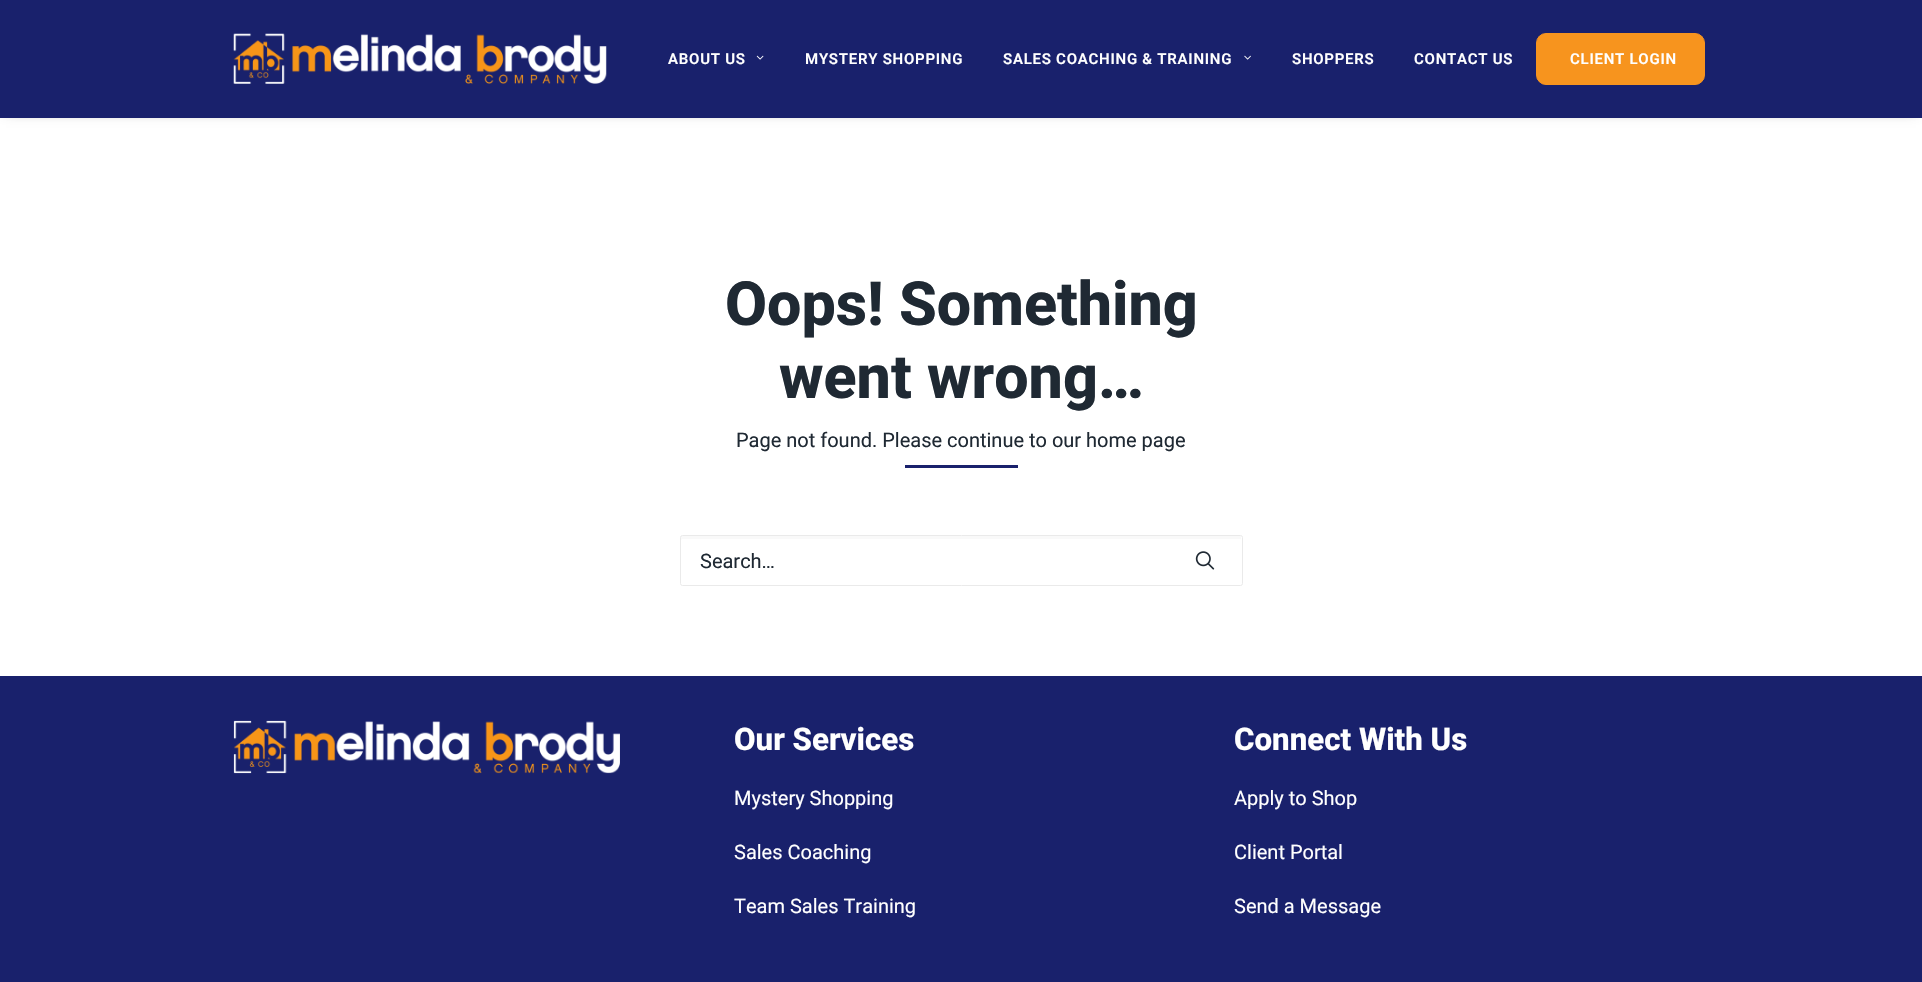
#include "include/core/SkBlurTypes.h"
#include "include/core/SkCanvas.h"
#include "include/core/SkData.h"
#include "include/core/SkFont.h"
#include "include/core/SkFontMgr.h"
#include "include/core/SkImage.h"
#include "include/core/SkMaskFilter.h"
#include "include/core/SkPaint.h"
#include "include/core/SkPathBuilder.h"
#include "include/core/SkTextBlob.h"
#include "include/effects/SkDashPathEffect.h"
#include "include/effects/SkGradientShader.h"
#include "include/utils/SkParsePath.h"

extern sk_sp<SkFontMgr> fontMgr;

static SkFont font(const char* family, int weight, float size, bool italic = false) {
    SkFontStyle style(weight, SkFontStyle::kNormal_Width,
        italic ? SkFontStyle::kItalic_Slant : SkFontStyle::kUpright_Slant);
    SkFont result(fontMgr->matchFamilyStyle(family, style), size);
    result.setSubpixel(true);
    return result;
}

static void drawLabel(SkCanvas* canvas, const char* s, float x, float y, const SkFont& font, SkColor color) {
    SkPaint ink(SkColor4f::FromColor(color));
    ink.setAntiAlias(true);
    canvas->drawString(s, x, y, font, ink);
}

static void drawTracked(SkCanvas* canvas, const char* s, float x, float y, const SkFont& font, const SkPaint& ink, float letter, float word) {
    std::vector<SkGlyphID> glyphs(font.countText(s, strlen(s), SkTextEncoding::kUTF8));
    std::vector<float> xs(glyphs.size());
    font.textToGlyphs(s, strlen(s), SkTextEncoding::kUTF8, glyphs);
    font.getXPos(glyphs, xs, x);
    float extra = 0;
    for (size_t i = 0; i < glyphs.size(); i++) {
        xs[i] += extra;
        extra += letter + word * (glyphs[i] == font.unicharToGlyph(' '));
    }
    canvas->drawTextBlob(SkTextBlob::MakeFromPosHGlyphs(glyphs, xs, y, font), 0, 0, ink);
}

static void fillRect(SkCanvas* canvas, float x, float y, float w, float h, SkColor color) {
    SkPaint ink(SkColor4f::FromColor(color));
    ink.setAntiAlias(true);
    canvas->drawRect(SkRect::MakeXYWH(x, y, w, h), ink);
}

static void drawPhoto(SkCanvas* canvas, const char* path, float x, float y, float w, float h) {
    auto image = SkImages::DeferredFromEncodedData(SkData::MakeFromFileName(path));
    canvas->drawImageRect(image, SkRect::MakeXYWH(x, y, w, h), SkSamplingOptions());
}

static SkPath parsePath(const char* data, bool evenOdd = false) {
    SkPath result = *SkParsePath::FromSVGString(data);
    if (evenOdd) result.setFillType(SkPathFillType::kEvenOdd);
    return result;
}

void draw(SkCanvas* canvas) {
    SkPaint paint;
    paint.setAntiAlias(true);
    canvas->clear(0xFFFFFFFF);
    paint.setColor(0x99000000);
    paint.setMaskFilter(SkMaskFilter::MakeBlur(kNormal_SkBlurStyle, 6));
    canvas->drawRect(SkRect::MakeXYWH(6, 18, 1910, 92), paint);
    paint.setMaskFilter(nullptr);
    fillRect(canvas, 0, 0, 1922, 118, 0xFF19216C);
    drawPhoto(canvas, "assets/img1.png", 233, 33, 374, 51);
    SkFont font1 = font("Roboto", 600, 15);
    paint.setColor(0xFFFFFFFF);
    drawTracked(canvas, "ABOUT US", 668, 64, font1, paint, 0.75f, 0);
    drawPhoto(canvas, "assets/img2.png", 756, 55, 8, 5);
    drawTracked(canvas, "MYSTERY SHOPPING", 805, 64, font1, paint, 0.75f, 0);
    drawTracked(canvas, "SALES COACHING & TRAINING", 1003, 64, font1, paint, 0.75f, 0);
    drawPhoto(canvas, "assets/img3.png", 1244, 55, 7, 5);
    drawTracked(canvas, "SHOPPERS", 1292, 64, font1, paint, 0.75f, 0);
    drawTracked(canvas, "CONTACT US", 1414, 64, font1, paint, 0.75f, 0);
    paint.setColor(0xFFF7941E);
    canvas->drawRoundRect(SkRect::MakeXYWH(1536.5f, 33.5f, 168, 51), 9.5f, 9.5f, paint);
    paint.setStroke(true);
    paint.setStrokeWidth(1);
    canvas->drawRoundRect(SkRect::MakeXYWH(1536.5f, 33.5f, 168, 51), 9.5f, 9.5f, paint);
    paint.setStroke(false);
    paint.setColor(0xFFFFFFFF);
    drawTracked(canvas, "CLIENT LOGIN", 1570, 64, font1, paint, 0.75f, 0);
    SkFont font2 = font("Roboto", 800, 61);
    drawLabel(canvas, "Oops! Something", 725, 325, font2, 0xFF1F2933);
    drawLabel(canvas, "went wrong…", 779, 398, font2, 0xFF1F2933);
    SkFont font3 = font("Roboto", 400, 20);
    drawLabel(canvas, "Page not found. Please continue to our home page", 736, 447, font3, 0xFF1F2933);
    fillRect(canvas, 905, 465, 113, 3, 0xFF19216C);
    paint.setColor(0xFFF9F9F9);
    canvas->drawPath(parsePath("M682 539H1240C1241 539 1241 539 1241 540V536H682C680 536 681 539 681 540Z"), paint);
    paint.setStroke(true);
    paint.setColor(0xFFEAEAEA);
    canvas->drawRoundRect(SkRect::MakeXYWH(680.5f, 535.5f, 562, 50), 2, 2, paint);
    drawLabel(canvas, "Search…", 700, 568, font3, 0xFF1F2933);
    drawPhoto(canvas, "assets/img4.png", 1195, 551, 20, 19);
    fillRect(canvas, 0, 676, 1922, 306, 0xFF19216C);
    drawPhoto(canvas, "assets/img5.png", 233, 720, 387, 54);
    SkFont font4 = font("Roboto", 800, 31.25f);
    drawLabel(canvas, "Our Services", 734, 750, font4, 0xFFFFFFFF);
    drawLabel(canvas, "Mystery Shopping", 734, 805, font3, 0xFFFFFFFF);
    drawLabel(canvas, "Sales Coaching", 734, 859, font3, 0xFFFFFFFF);
    drawLabel(canvas, "Team Sales Training", 734, 913, font3, 0xFFFFFFFF);
    drawLabel(canvas, "Connect With Us", 1234, 750, font4, 0xFFFFFFFF);
    drawLabel(canvas, "Apply to Shop", 1234, 805, font3, 0xFFFFFFFF);
    drawLabel(canvas, "Client Portal", 1234, 859, font3, 0xFFFFFFFF);
    drawLabel(canvas, "Send a Message", 1234, 913, font3, 0xFFFFFFFF);
}
